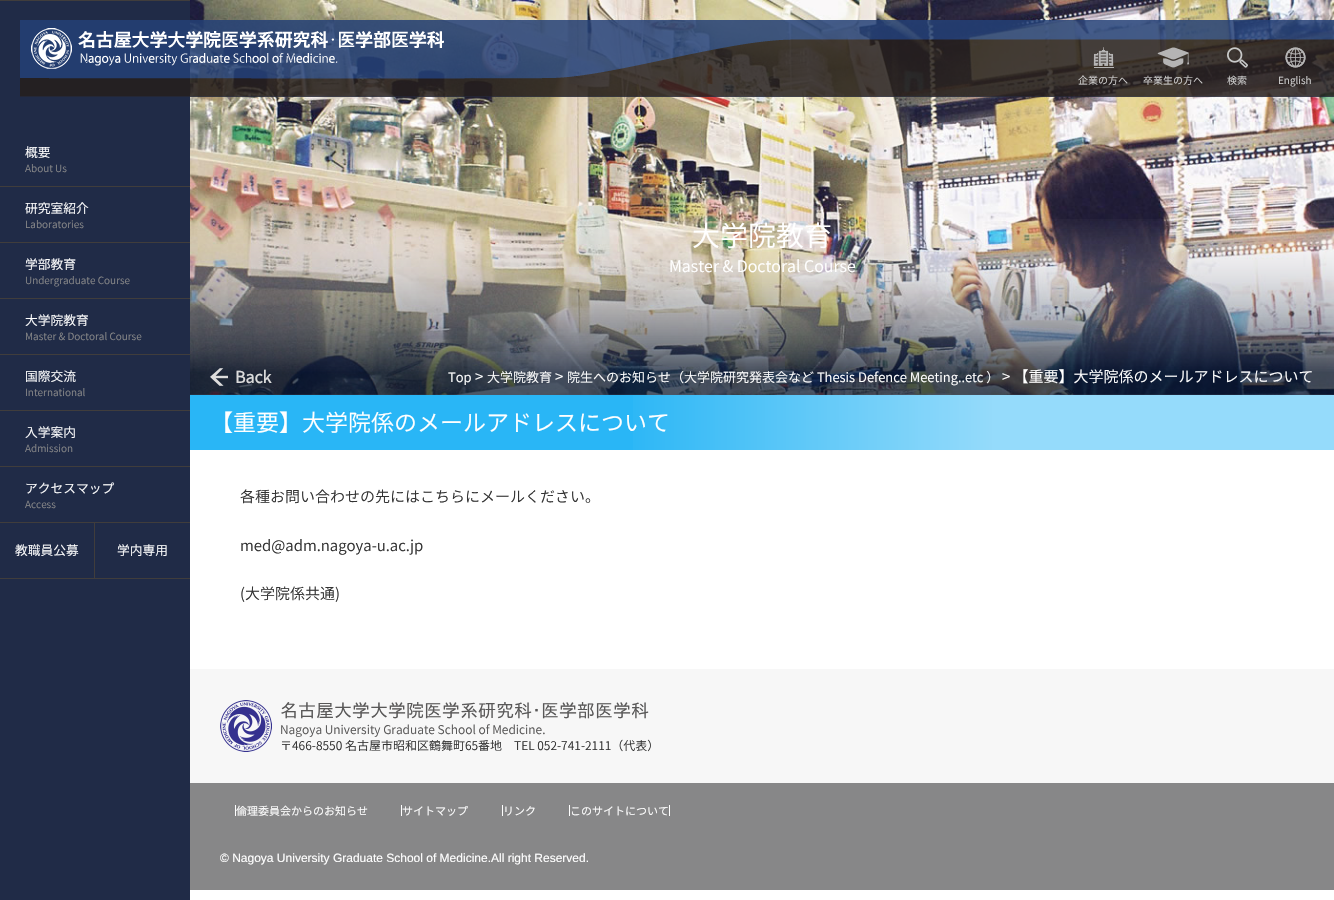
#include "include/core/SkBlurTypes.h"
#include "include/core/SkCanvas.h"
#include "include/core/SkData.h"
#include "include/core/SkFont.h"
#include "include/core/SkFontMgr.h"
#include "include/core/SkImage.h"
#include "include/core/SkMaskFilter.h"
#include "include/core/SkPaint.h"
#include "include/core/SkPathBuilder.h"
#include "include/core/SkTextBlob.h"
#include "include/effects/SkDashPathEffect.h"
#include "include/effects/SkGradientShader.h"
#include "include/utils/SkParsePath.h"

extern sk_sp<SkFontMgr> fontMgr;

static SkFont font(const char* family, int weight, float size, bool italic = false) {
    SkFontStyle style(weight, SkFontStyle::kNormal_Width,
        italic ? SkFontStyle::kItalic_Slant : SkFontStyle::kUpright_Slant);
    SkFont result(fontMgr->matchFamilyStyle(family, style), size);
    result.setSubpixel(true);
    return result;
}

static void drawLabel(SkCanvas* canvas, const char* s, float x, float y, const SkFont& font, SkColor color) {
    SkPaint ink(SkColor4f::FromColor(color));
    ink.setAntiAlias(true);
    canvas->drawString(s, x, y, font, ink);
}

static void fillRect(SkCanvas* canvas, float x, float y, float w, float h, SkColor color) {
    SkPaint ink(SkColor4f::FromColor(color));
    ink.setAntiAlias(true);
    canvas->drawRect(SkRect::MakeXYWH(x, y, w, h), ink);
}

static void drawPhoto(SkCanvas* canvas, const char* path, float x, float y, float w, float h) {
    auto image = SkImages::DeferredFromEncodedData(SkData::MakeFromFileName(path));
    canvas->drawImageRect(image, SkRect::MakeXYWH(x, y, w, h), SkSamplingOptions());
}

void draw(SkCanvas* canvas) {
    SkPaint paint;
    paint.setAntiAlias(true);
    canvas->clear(0xFFFFFFFF);
    fillRect(canvas, 0, 1, 190, 899, 0xFF202B47);
    drawPhoto(canvas, "assets/img7.png", 190, 0, 1144, 395);
    drawPhoto(canvas, "assets/img1.png", 20, 20, 1314, 77);
    drawPhoto(canvas, "assets/img2.png", 31, 28, 413, 41);
    drawPhoto(canvas, "assets/img3.png", 1093, 47, 21, 21);
    SkFont font1 = font("Noto Sans CJK JP", 300, 10);
    drawLabel(canvas, "企業の方へ", 1078, 84, font1, 0xFFD4D4D4);
    drawPhoto(canvas, "assets/img4.png", 1157, 47, 33, 21);
    drawLabel(canvas, "卒業生の方へ", 1143, 84, font1, 0xFFD4D4D4);
    drawPhoto(canvas, "assets/img5.png", 1227, 47, 21, 21);
    drawLabel(canvas, "検索", 1227, 84, font1, 0xFFD4D4D4);
    drawPhoto(canvas, "assets/img6.png", 1285, 47, 21, 21);
    drawLabel(canvas, "English", 1278, 84, font1, 0xFFD4D4D4);
    fillRect(canvas, 0, 0, 190, 1, 0xFF403D3C);
    fillRect(canvas, 0, 186, 190, 1, 0xFF403D3C);
    SkFont font2 = font("Noto Sans CJK JP", 300, 12.75f);
    drawLabel(canvas, "概要", 25, 157, font2, 0xFFFFFFFF);
    drawLabel(canvas, "About Us", 25, 172, font1, 0xFF878788);
    fillRect(canvas, 0, 242, 190, 1, 0xFF403D3C);
    drawLabel(canvas, "研究室紹介", 25, 213, font2, 0xFFFFFFFF);
    drawLabel(canvas, "Laboratories", 25, 228, font1, 0xFF878788);
    fillRect(canvas, 0, 298, 190, 1, 0xFF403D3C);
    drawLabel(canvas, "学部教育", 25, 269, font2, 0xFFFFFFFF);
    drawLabel(canvas, "Undergraduate Course", 25, 284, font1, 0xFF878788);
    fillRect(canvas, 0, 354, 190, 1, 0xFF403D3C);
    drawLabel(canvas, "大学院教育", 25, 325, font2, 0xFFFFFFFF);
    drawLabel(canvas, "Master & Doctoral Course", 25, 340, font1, 0xFF878788);
    fillRect(canvas, 0, 410, 190, 1, 0xFF403D3C);
    drawLabel(canvas, "国際交流", 25, 381, font2, 0xFFFFFFFF);
    drawLabel(canvas, "International", 25, 396, font1, 0xFF878788);
    fillRect(canvas, 0, 466, 190, 1, 0xFF403D3C);
    drawLabel(canvas, "入学案内", 25, 437, font2, 0xFFFFFFFF);
    drawLabel(canvas, "Admission", 25, 452, font1, 0xFF878788);
    fillRect(canvas, 0, 522, 190, 1, 0xFF403D3C);
    drawLabel(canvas, "アクセスマップ", 25, 493, font2, 0xFFFFFFFF);
    drawLabel(canvas, "Access", 25, 508, font1, 0xFF878788);
    fillRect(canvas, 0, 578, 190, 1, 0xFF403D3C);
    fillRect(canvas, 94, 523, 1, 55, 0xFF403D3C);
    drawLabel(canvas, "教職員公募", 15, 555, font2, 0xFFFFFFFF);
    drawLabel(canvas, "学内専用", 117, 555, font2, 0xFFFFFFFF);
    drawPhoto(canvas, "assets/img8.png", 190, 219, 1144, 176);
    SkFont font3 = font("Noto Sans CJK JP", 300, 28);
    drawLabel(canvas, "大学院教育", 692, 246, font3, 0xFFFFFFFF);
    SkFont font4 = font("Noto Sans CJK JP", 300, 16);
    drawLabel(canvas, "Master & Doctoral Course", 669, 272, font4, 0xFFFFFFFF);
    drawPhoto(canvas, "assets/img9.png", 210, 368, 18, 18);
    SkFont font5 = font("Noto Sans CJK JP", 700, 16);
    drawLabel(canvas, "Back", 235, 383, font5, 0xFFDCDCDC);
    SkFont font6 = font("Noto Sans CJK JP", 300, 13);
    drawLabel(canvas, "Top", 448, 382, font6, 0xFFFFFFFF);
    SkFont font7 = font("Noto Sans CJK JP", 300, 15);
    drawLabel(canvas, ">", 475, 382, font7, 0xFFFFFFFF);
    drawLabel(canvas, "大学院教育", 487, 382, font6, 0xFFFFFFFF);
    drawLabel(canvas, ">", 555, 382, font7, 0xFFFFFFFF);
    drawLabel(canvas, "院生へのお知らせ（大学院研究発表会など Thesis Defence Meeting..etc ）", 567, 382, font6, 0xFFFFFFFF);
    drawLabel(canvas, "> 【重要】大学院係のメールアドレスについて", 1002, 382, font7, 0xFFFFFFFF);
    fillRect(canvas, 190, 395, 1144, 55, 0xFF29B6F6);
    drawPhoto(canvas, "assets/img10.png", 633, 395, 701, 55);
    SkFont font8 = font("Noto Sans CJK JP", 300, 23);
    drawLabel(canvas, "【重要】大学院係のメールアドレスについて", 210, 431, font8, 0xFFFFFFFF);
    drawLabel(canvas, "各種お問い合わせの先にはこちらにメールください。", 240, 502, font7, 0xFF333333);
    drawLabel(canvas, "med@adm.nagoya-u.ac.jp", 240, 551, font7, 0xFF333333);
    drawLabel(canvas, "(大学院係共通)", 240, 599, font7, 0xFF333333);
    fillRect(canvas, 190, 669, 1144, 114, 0xFFF7F7F7);
    drawPhoto(canvas, "assets/img11.png", 220, 700, 52, 52);
    SkFont font9 = font("IPAPGothic", 400, 18);
    drawLabel(canvas, "名古屋大学大学院医学系研究科･医学部医学科", 280, 717, font9, 0xFF595858);
    SkFont font10 = font("Noto Sans CJK JP", 300, 12);
    drawLabel(canvas, "Nagoya University Graduate School of Medicine.", 280, 734, font10, 0xFF595858);
    drawLabel(canvas, "〒466-8550 名古屋市昭和区鶴舞町65番地", 280, 750, font10, 0xFF333333);
    drawLabel(canvas, "TEL 052-741-2111（代表）", 514, 750, font10, 0xFF333333);
    fillRect(canvas, 190, 783, 1144, 107, 0xFF878788);
    SkFont font11 = font("Noto Sans CJK JP", 300, 11);
    drawLabel(canvas, "倫理委員会からのお知らせ", 236, 815, font11, 0xFFFFFFFF);
    fillRect(canvas, 235, 805, 1, 11, 0xFFFFFFFF);
    drawLabel(canvas, "サイトマップ", 402, 815, font11, 0xFFFFFFFF);
    fillRect(canvas, 401, 805, 1, 11, 0xFFFFFFFF);
    drawLabel(canvas, "リンク", 503, 815, font11, 0xFFFFFFFF);
    fillRect(canvas, 502, 805, 1, 11, 0xFFFFFFFF);
    drawLabel(canvas, "このサイトについて", 570, 815, font11, 0xFFFFFFFF);
    fillRect(canvas, 569, 805, 1, 11, 0xFFFFFFFF);
    fillRect(canvas, 669, 805, 1, 11, 0xFFFFFFFF);
    SkFont font12 = font("Liberation Sans", 400, 12);
    drawLabel(canvas, "© Nagoya University Graduate School of Medicine.All right Reserved.", 220, 862, font12, 0xFFFFFFFF);
}
